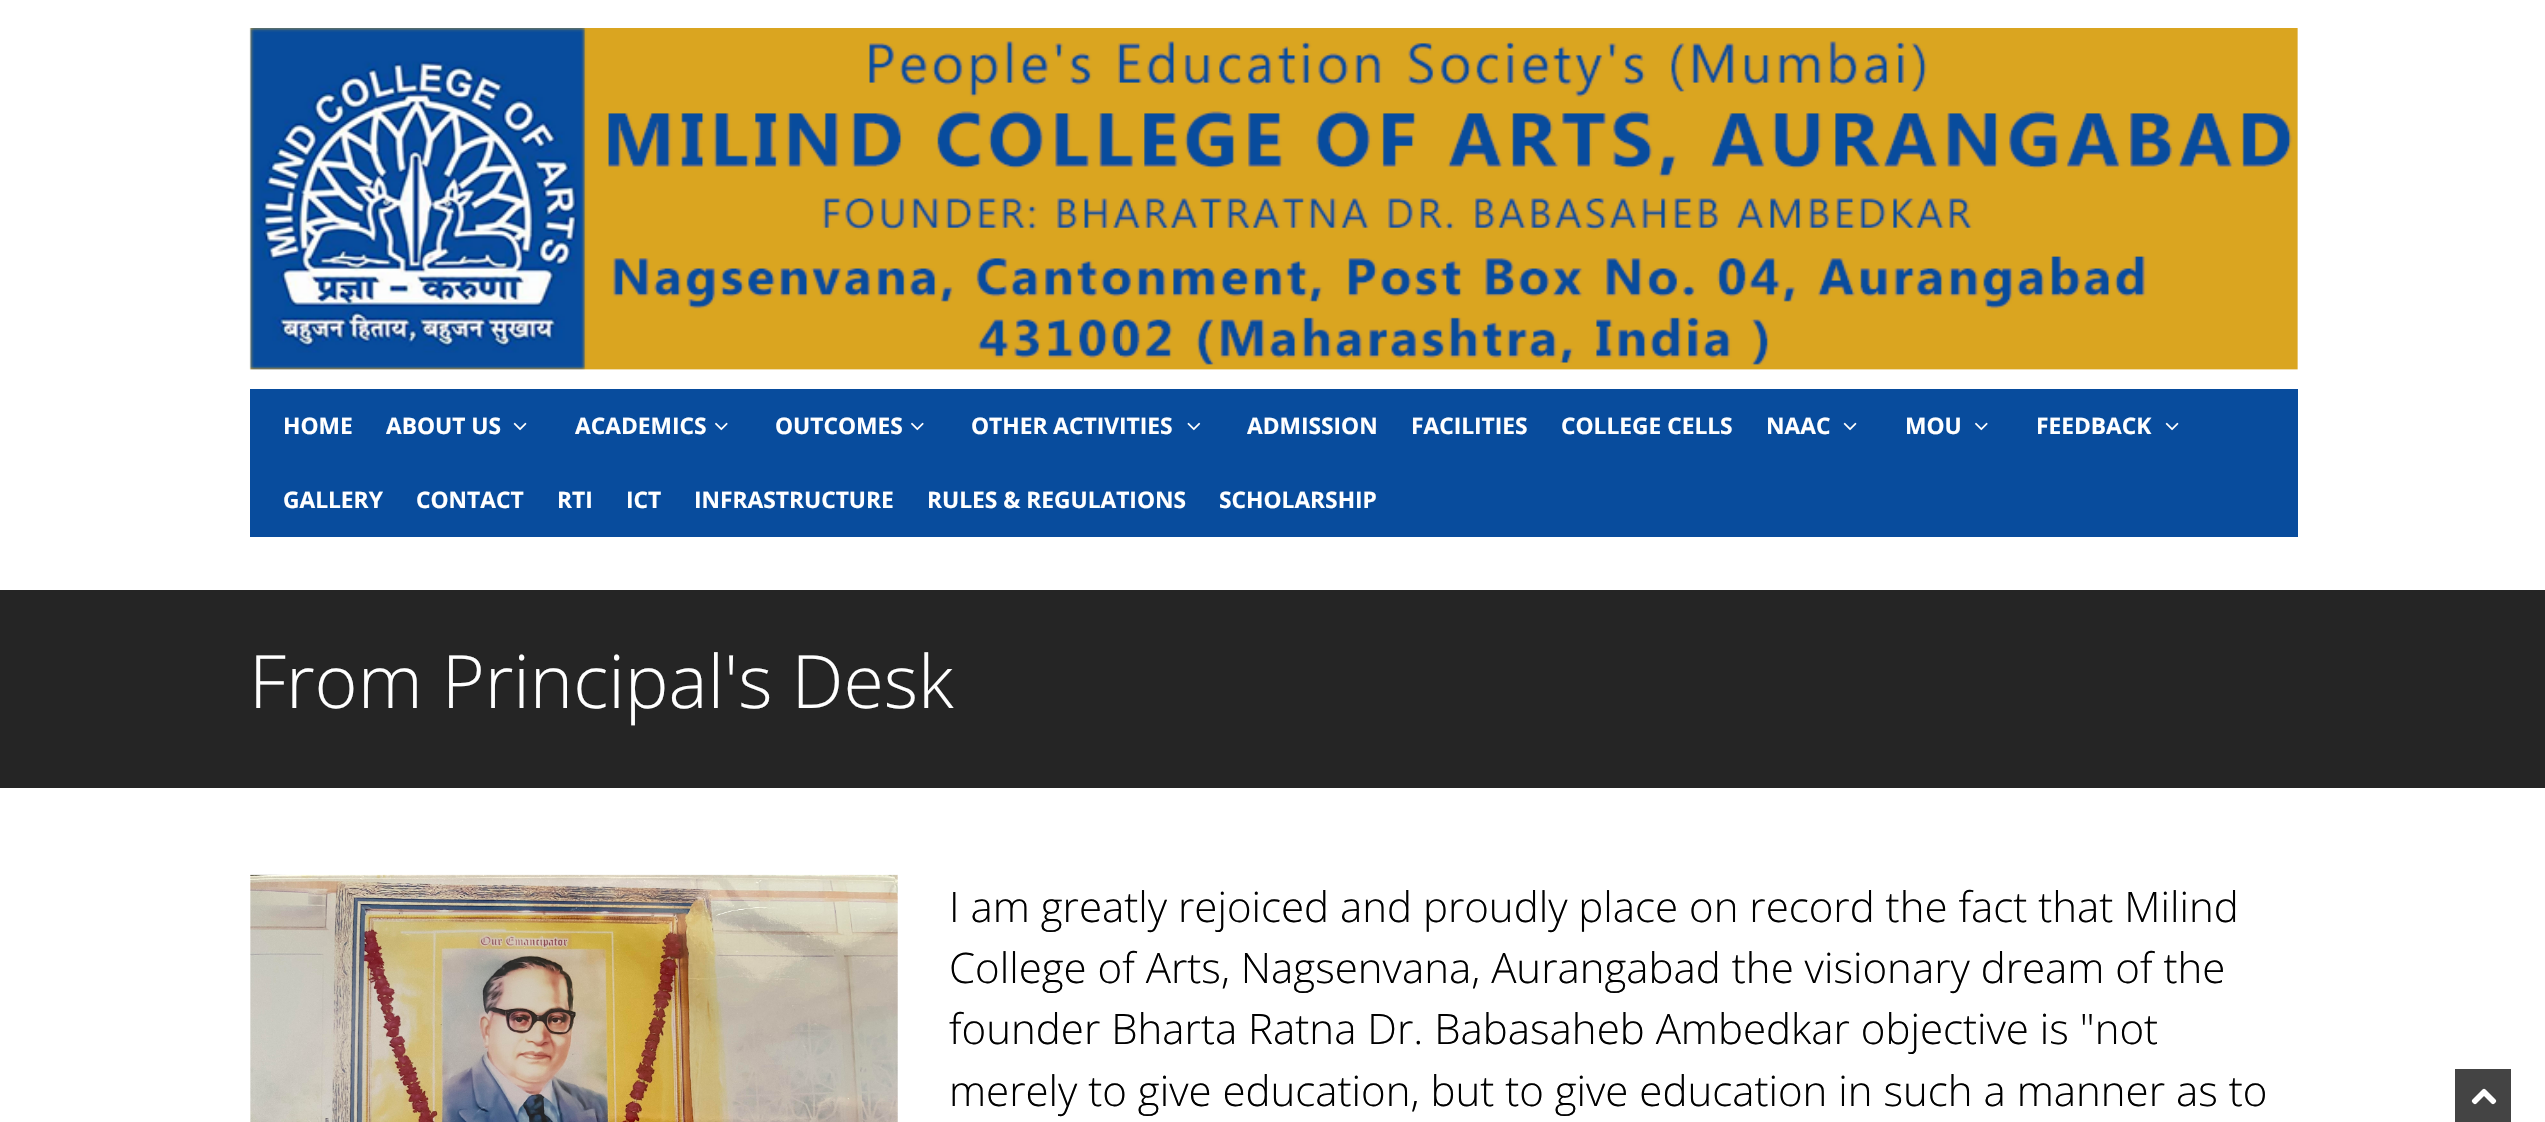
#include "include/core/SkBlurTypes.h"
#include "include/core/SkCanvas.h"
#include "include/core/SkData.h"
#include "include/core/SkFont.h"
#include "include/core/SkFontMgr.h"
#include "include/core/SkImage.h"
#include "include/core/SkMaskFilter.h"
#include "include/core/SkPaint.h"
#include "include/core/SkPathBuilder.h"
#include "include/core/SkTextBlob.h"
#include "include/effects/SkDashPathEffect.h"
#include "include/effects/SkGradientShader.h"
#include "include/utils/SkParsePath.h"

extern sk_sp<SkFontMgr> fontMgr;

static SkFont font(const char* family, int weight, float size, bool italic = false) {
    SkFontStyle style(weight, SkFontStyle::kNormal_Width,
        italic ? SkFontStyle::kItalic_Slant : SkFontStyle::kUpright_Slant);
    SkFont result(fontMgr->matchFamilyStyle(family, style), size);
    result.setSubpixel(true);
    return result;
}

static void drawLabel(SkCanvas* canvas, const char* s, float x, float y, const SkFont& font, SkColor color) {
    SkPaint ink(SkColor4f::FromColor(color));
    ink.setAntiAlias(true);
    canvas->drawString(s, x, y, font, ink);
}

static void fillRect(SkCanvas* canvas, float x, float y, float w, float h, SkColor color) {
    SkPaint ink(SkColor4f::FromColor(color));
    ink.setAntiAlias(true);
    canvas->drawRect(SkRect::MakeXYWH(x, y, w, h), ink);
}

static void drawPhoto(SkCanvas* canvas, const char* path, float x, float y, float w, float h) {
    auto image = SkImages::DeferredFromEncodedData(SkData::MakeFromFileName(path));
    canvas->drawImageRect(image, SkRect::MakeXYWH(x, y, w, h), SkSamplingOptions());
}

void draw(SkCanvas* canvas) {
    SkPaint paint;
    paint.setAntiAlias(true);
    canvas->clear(0xFFFFFFFF);
    drawPhoto(canvas, "assets/img1.png", 249, 28, 2049, 342);
    fillRect(canvas, 250, 389, 2048, 148, 0xFF084C9D);
    SkFont font1 = font("Open Sans", 700, 22.75f);
    drawLabel(canvas, "HOME", 283, 434, font1, 0xFFFFFFFF);
    drawLabel(canvas, "ABOUT US", 386, 434, font1, 0xFFFFFFFF);
    drawPhoto(canvas, "assets/img2.png", 513, 422, 14, 9);
    drawLabel(canvas, "ACADEMICS", 575, 434, font1, 0xFFFFFFFF);
    drawPhoto(canvas, "assets/img3.png", 715, 422, 13, 9);
    drawLabel(canvas, "OUTCOMES", 775, 434, font1, 0xFFFFFFFF);
    drawPhoto(canvas, "assets/img3.png", 911, 422, 13, 9);
    drawLabel(canvas, "OTHER ACTIVITIES", 971, 434, font1, 0xFFFFFFFF);
    drawPhoto(canvas, "assets/img4.png", 1187, 422, 14, 9);
    drawLabel(canvas, "ADMISSION", 1247, 434, font1, 0xFFFFFFFF);
    drawLabel(canvas, "FACILITIES", 1411, 434, font1, 0xFFFFFFFF);
    drawLabel(canvas, "COLLEGE CELLS", 1561, 434, font1, 0xFFFFFFFF);
    drawLabel(canvas, "NAAC", 1766, 434, font1, 0xFFFFFFFF);
    drawPhoto(canvas, "assets/img2.png", 1843, 422, 14, 9);
    drawLabel(canvas, "MOU", 1905, 434, font1, 0xFFFFFFFF);
    drawPhoto(canvas, "assets/img3.png", 1975, 422, 13, 9);
    drawLabel(canvas, "FEEDBACK", 2036, 434, font1, 0xFFFFFFFF);
    drawPhoto(canvas, "assets/img2.png", 2165, 422, 14, 9);
    drawLabel(canvas, "GALLERY", 283, 508, font1, 0xFFFFFFFF);
    drawLabel(canvas, "CONTACT", 416, 508, font1, 0xFFFFFFFF);
    drawLabel(canvas, "RTI", 557, 508, font1, 0xFFFFFFFF);
    drawLabel(canvas, "ICT", 626, 508, font1, 0xFFFFFFFF);
    drawLabel(canvas, "INFRASTRUCTURE", 694, 508, font1, 0xFFFFFFFF);
    drawLabel(canvas, "RULES & REGULATIONS", 927, 508, font1, 0xFFFFFFFF);
    drawLabel(canvas, "SCHOLARSHIP", 1219, 508, font1, 0xFFFFFFFF);
    fillRect(canvas, 0, 590, 2545, 198, 0xFF252525);
    SkFont font2 = font("Open Sans", 300, 73.5f);
    drawLabel(canvas, "From Principal's Desk", 249, 708, font2, 0xFFFFFFFF);
    drawPhoto(canvas, "assets/img5.png", 250, 874, 648, 248);
    SkFont font3 = font("Open Sans", 300, 42);
    drawLabel(canvas, "I am greatly rejoiced and proudly place on record the fact that Milind", 949, 922, font3, 0xFF000000);
    drawLabel(canvas, "College of Arts, Nagsenvana, Aurangabad the visionary dream of the", 949, 983, font3, 0xFF000000);
    drawLabel(canvas, "founder Bharta Ratna Dr. Babasaheb Ambedkar objective is \"not", 949, 1044, font3, 0xFF000000);
    drawLabel(canvas, "merely to give education, but to give education in such a manner as to", 949, 1106, font3, 0xFF000000);
    fillRect(canvas, 2455, 1069, 56, 53, 0xFF444444);
    drawPhoto(canvas, "assets/img6.png", 2471, 1088, 26, 17);
}
